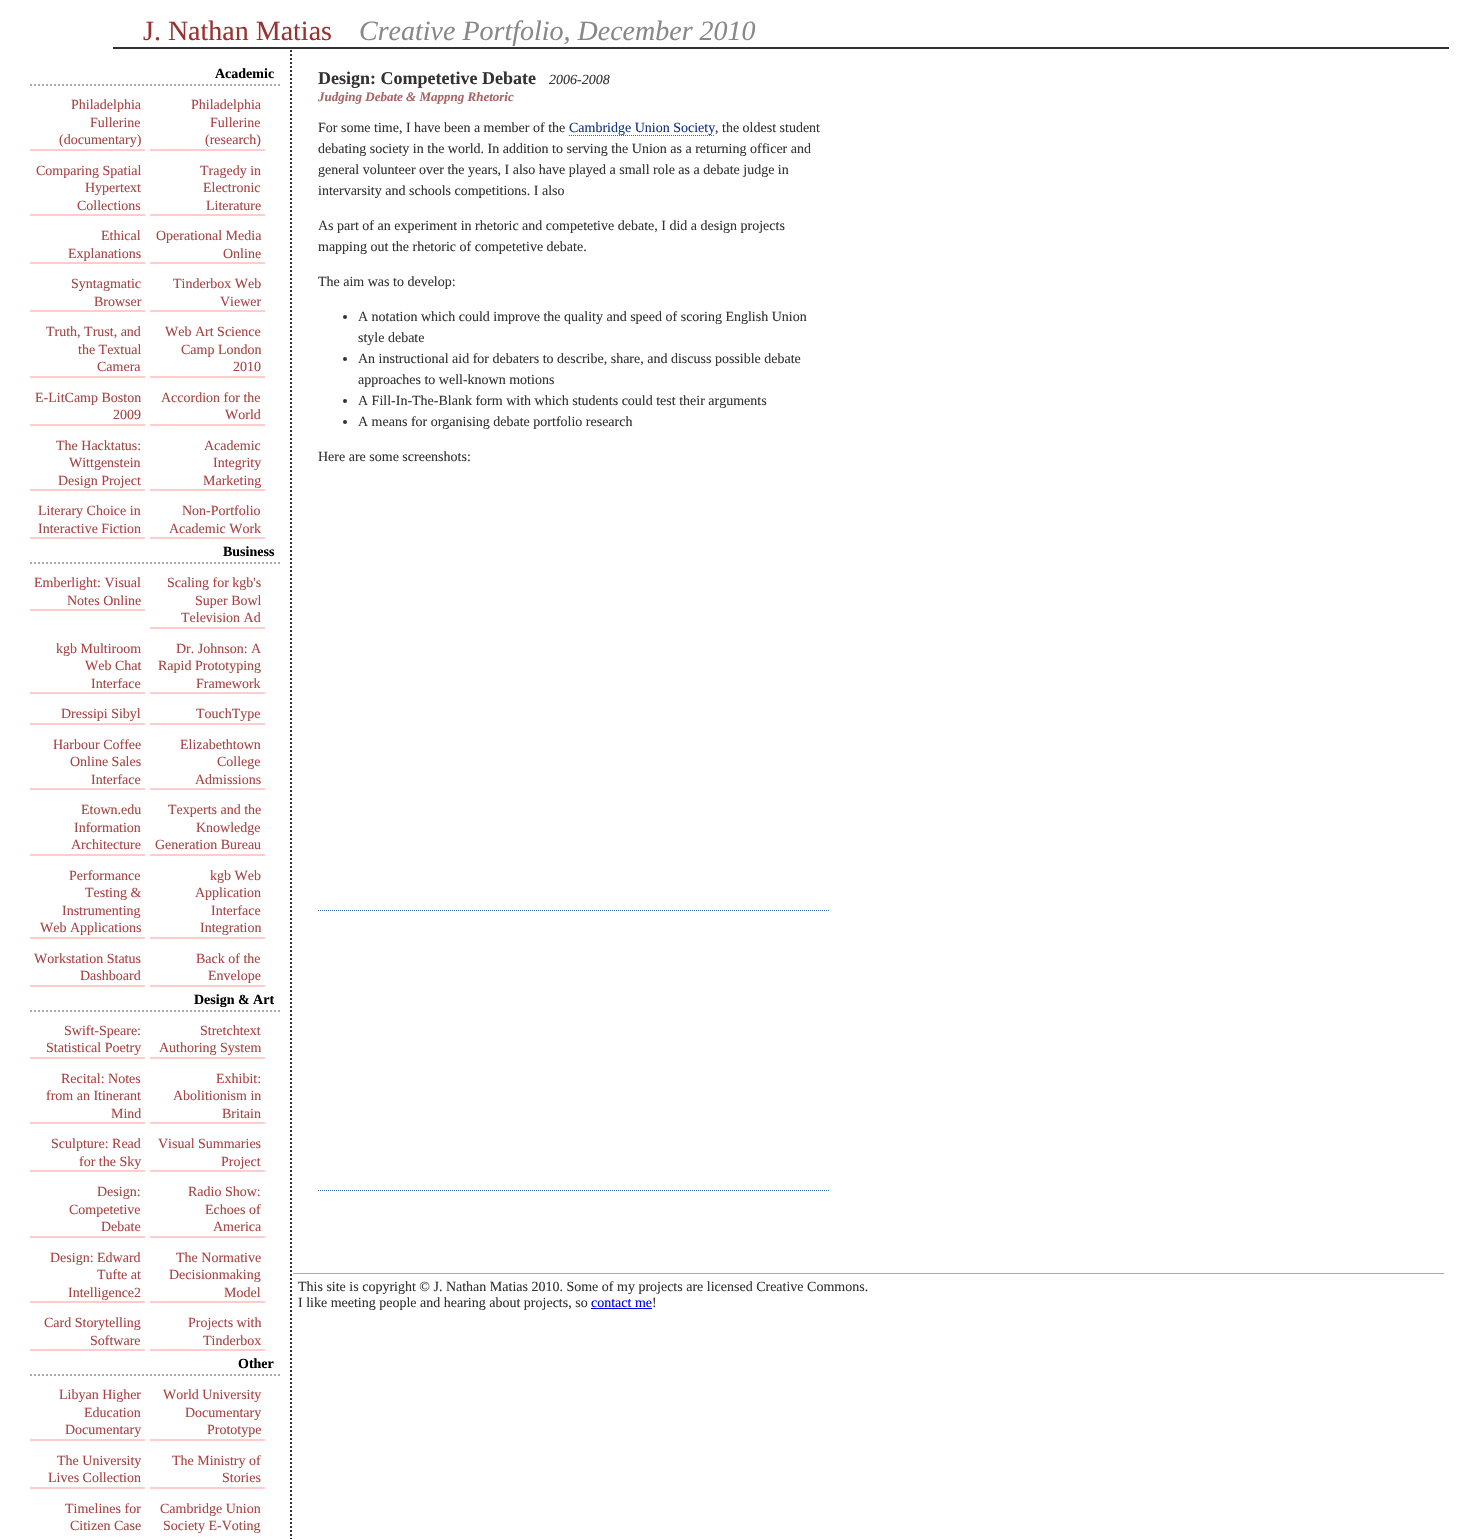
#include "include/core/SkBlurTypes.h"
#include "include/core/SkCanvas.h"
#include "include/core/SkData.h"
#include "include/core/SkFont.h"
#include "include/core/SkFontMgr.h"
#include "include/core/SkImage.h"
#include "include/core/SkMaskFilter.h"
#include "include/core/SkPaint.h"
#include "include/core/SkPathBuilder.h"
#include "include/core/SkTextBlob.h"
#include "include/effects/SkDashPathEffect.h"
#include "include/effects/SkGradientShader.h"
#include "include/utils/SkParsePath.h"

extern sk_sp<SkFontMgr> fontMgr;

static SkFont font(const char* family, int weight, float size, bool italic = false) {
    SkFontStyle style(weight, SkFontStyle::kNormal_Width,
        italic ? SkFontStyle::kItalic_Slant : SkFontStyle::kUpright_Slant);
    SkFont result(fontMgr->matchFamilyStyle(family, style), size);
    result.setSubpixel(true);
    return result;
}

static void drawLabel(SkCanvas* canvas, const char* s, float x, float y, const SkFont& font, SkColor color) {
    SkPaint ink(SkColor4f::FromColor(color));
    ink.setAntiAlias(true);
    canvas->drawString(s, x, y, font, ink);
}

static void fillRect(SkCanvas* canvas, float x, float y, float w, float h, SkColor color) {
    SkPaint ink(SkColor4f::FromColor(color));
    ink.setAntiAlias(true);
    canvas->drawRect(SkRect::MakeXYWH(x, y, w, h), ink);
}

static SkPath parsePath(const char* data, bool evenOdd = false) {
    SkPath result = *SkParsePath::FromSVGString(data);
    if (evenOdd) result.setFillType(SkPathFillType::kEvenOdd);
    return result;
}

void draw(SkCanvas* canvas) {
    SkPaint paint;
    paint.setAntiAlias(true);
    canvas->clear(0xFFFFFFFF);
    fillRect(canvas, 113, 47, 1336, 2, 0xFF333333);
    SkFont font1 = font("Liberation Serif", 400, 28);
    drawLabel(canvas, "J. Nathan Matias", 143, 40, font1, 0xFF993333);
    SkFont font2 = font("Liberation Serif", 400, 28, true);
    drawLabel(canvas, "Creative Portfolio, December 2010", 359, 40, font2, 0xFF888888);
    paint.setStroke(true);
    paint.setStrokeWidth(2);
    paint.setColor(0xFF333333);
    paint.setPathEffect(SkDashPathEffect::Make({{2, 2}}, 0));
    canvas->drawPath(parsePath("M291 50V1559"), paint);
    paint.setPathEffect(nullptr);
    paint.setColor(0xFFAAAAAA);
    paint.setPathEffect(SkDashPathEffect::Make({{2, 2}}, 0));
    canvas->drawPath(parsePath("M30 85H280"), paint);
    paint.setPathEffect(nullptr);
    SkFont font3 = font("Liberation Serif", 700, 14);
    drawLabel(canvas, "Academic", 215, 78, font3, 0xFF000000);
    fillRect(canvas, 30, 149, 115, 2, 0xFFFFCCCC);
    SkFont font4 = font("Liberation Serif", 400, 14);
    drawLabel(canvas, "Philadelphia", 71, 109, font4, 0xFFAA4444);
    drawLabel(canvas, "Fullerine", 90, 127, font4, 0xFFAA4444);
    drawLabel(canvas, "(documentary)", 59, 144, font4, 0xFFAA4444);
    fillRect(canvas, 150, 149, 115, 2, 0xFFFFCCCC);
    drawLabel(canvas, "Philadelphia", 191, 109, font4, 0xFFAA4444);
    drawLabel(canvas, "Fullerine", 210, 127, font4, 0xFFAA4444);
    drawLabel(canvas, "(research)", 205, 144, font4, 0xFFAA4444);
    fillRect(canvas, 30, 214, 115, 2, 0xFFFFCCCC);
    drawLabel(canvas, "Comparing Spatial", 36, 175, font4, 0xFFAA4444);
    drawLabel(canvas, "Hypertext", 85, 192, font4, 0xFFAA4444);
    drawLabel(canvas, "Collections", 77, 210, font4, 0xFFAA4444);
    fillRect(canvas, 150, 214, 115, 2, 0xFFFFCCCC);
    drawLabel(canvas, "Tragedy in", 200, 175, font4, 0xFFAA4444);
    drawLabel(canvas, "Electronic", 203, 192, font4, 0xFFAA4444);
    drawLabel(canvas, "Literature", 206, 210, font4, 0xFFAA4444);
    fillRect(canvas, 30, 262, 115, 2, 0xFFFFCCCC);
    drawLabel(canvas, "Ethical", 101, 240, font4, 0xFFAA4444);
    drawLabel(canvas, "Explanations", 68, 258, font4, 0xFFAA4444);
    fillRect(canvas, 150, 262, 115, 2, 0xFFFFCCCC);
    drawLabel(canvas, "Operational Media", 156, 240, font4, 0xFFAA4444);
    drawLabel(canvas, "Online", 223, 258, font4, 0xFFAA4444);
    fillRect(canvas, 30, 310, 115, 2, 0xFFFFCCCC);
    drawLabel(canvas, "Syntagmatic", 71, 288, font4, 0xFFAA4444);
    drawLabel(canvas, "Browser", 94, 306, font4, 0xFFAA4444);
    fillRect(canvas, 150, 310, 115, 2, 0xFFFFCCCC);
    drawLabel(canvas, "Tinderbox Web", 173, 288, font4, 0xFFAA4444);
    drawLabel(canvas, "Viewer", 220, 306, font4, 0xFFAA4444);
    fillRect(canvas, 30, 376, 115, 2, 0xFFFFCCCC);
    drawLabel(canvas, "Truth, Trust, and", 46, 336, font4, 0xFFAA4444);
    drawLabel(canvas, "the Textual", 78, 354, font4, 0xFFAA4444);
    drawLabel(canvas, "Camera", 97, 371, font4, 0xFFAA4444);
    fillRect(canvas, 150, 376, 115, 2, 0xFFFFCCCC);
    drawLabel(canvas, "Web Art Science", 165, 336, font4, 0xFFAA4444);
    drawLabel(canvas, "Camp London", 181, 354, font4, 0xFFAA4444);
    drawLabel(canvas, "2010", 233, 371, font4, 0xFFAA4444);
    fillRect(canvas, 30, 424, 115, 2, 0xFFFFCCCC);
    drawLabel(canvas, "E-LitCamp Boston", 35, 402, font4, 0xFFAA4444);
    drawLabel(canvas, "2009", 113, 419, font4, 0xFFAA4444);
    fillRect(canvas, 150, 424, 115, 2, 0xFFFFCCCC);
    drawLabel(canvas, "Accordion for the", 161, 402, font4, 0xFFAA4444);
    drawLabel(canvas, "World", 225, 419, font4, 0xFFAA4444);
    fillRect(canvas, 30, 489, 115, 2, 0xFFFFCCCC);
    drawLabel(canvas, "The Hacktatus:", 56, 450, font4, 0xFFAA4444);
    drawLabel(canvas, "Wittgenstein", 69, 467, font4, 0xFFAA4444);
    drawLabel(canvas, "Design Project", 58, 485, font4, 0xFFAA4444);
    fillRect(canvas, 150, 489, 115, 2, 0xFFFFCCCC);
    drawLabel(canvas, "Academic", 204, 450, font4, 0xFFAA4444);
    drawLabel(canvas, "Integrity", 213, 467, font4, 0xFFAA4444);
    drawLabel(canvas, "Marketing", 203, 485, font4, 0xFFAA4444);
    fillRect(canvas, 30, 537, 115, 2, 0xFFFFCCCC);
    drawLabel(canvas, "Literary Choice in", 38, 515, font4, 0xFFAA4444);
    drawLabel(canvas, "Interactive Fiction", 38, 533, font4, 0xFFAA4444);
    fillRect(canvas, 150, 537, 115, 2, 0xFFFFCCCC);
    drawLabel(canvas, "Non-Portfolio", 182, 515, font4, 0xFFAA4444);
    drawLabel(canvas, "Academic Work", 169, 533, font4, 0xFFAA4444);
    paint.setPathEffect(SkDashPathEffect::Make({{2, 2}}, 0));
    canvas->drawPath(parsePath("M30 563H280"), paint);
    paint.setPathEffect(nullptr);
    drawLabel(canvas, "Business", 223, 556, font3, 0xFF000000);
    fillRect(canvas, 30, 609, 115, 2, 0xFFFFCCCC);
    drawLabel(canvas, "Emberlight: Visual", 34, 587, font4, 0xFFAA4444);
    drawLabel(canvas, "Notes Online", 67, 605, font4, 0xFFAA4444);
    fillRect(canvas, 150, 627, 115, 2, 0xFFFFCCCC);
    drawLabel(canvas, "Scaling for kgb's", 167, 587, font4, 0xFFAA4444);
    drawLabel(canvas, "Super Bowl", 195, 605, font4, 0xFFAA4444);
    drawLabel(canvas, "Television Ad", 181, 622, font4, 0xFFAA4444);
    fillRect(canvas, 30, 692, 115, 2, 0xFFFFCCCC);
    drawLabel(canvas, "kgb Multiroom", 56, 653, font4, 0xFFAA4444);
    drawLabel(canvas, "Web Chat", 85, 670, font4, 0xFFAA4444);
    drawLabel(canvas, "Interface", 91, 688, font4, 0xFFAA4444);
    fillRect(canvas, 150, 692, 115, 2, 0xFFFFCCCC);
    drawLabel(canvas, "Dr. Johnson: A", 176, 653, font4, 0xFFAA4444);
    drawLabel(canvas, "Rapid Prototyping", 158, 670, font4, 0xFFAA4444);
    drawLabel(canvas, "Framework", 196, 688, font4, 0xFFAA4444);
    fillRect(canvas, 30, 723, 115, 2, 0xFFFFCCCC);
    drawLabel(canvas, "Dressipi Sibyl", 61, 718, font4, 0xFFAA4444);
    fillRect(canvas, 150, 723, 115, 2, 0xFFFFCCCC);
    drawLabel(canvas, "TouchType", 196, 718, font4, 0xFFAA4444);
    fillRect(canvas, 30, 788, 115, 2, 0xFFFFCCCC);
    drawLabel(canvas, "Harbour Coffee", 53, 749, font4, 0xFFAA4444);
    drawLabel(canvas, "Online Sales", 70, 766, font4, 0xFFAA4444);
    drawLabel(canvas, "Interface", 91, 784, font4, 0xFFAA4444);
    fillRect(canvas, 150, 788, 115, 2, 0xFFFFCCCC);
    drawLabel(canvas, "Elizabethtown", 180, 749, font4, 0xFFAA4444);
    drawLabel(canvas, "College", 217, 766, font4, 0xFFAA4444);
    drawLabel(canvas, "Admissions", 195, 784, font4, 0xFFAA4444);
    fillRect(canvas, 30, 854, 115, 2, 0xFFFFCCCC);
    drawLabel(canvas, "Etown.edu", 81, 814, font4, 0xFFAA4444);
    drawLabel(canvas, "Information", 74, 832, font4, 0xFFAA4444);
    drawLabel(canvas, "Architecture", 71, 849, font4, 0xFFAA4444);
    fillRect(canvas, 150, 854, 115, 2, 0xFFFFCCCC);
    drawLabel(canvas, "Texperts and the", 168, 814, font4, 0xFFAA4444);
    drawLabel(canvas, "Knowledge", 196, 832, font4, 0xFFAA4444);
    drawLabel(canvas, "Generation Bureau", 155, 849, font4, 0xFFAA4444);
    fillRect(canvas, 30, 937, 115, 2, 0xFFFFCCCC);
    drawLabel(canvas, "Performance", 69, 880, font4, 0xFFAA4444);
    drawLabel(canvas, "Testing &", 85, 897, font4, 0xFFAA4444);
    drawLabel(canvas, "Instrumenting", 62, 915, font4, 0xFFAA4444);
    drawLabel(canvas, "Web Applications", 40, 932, font4, 0xFFAA4444);
    fillRect(canvas, 150, 937, 115, 2, 0xFFFFCCCC);
    drawLabel(canvas, "kgb Web", 210, 880, font4, 0xFFAA4444);
    drawLabel(canvas, "Application", 195, 897, font4, 0xFFAA4444);
    drawLabel(canvas, "Interface", 211, 915, font4, 0xFFAA4444);
    drawLabel(canvas, "Integration", 200, 932, font4, 0xFFAA4444);
    fillRect(canvas, 30, 985, 115, 2, 0xFFFFCCCC);
    drawLabel(canvas, "Workstation Status", 34, 963, font4, 0xFFAA4444);
    drawLabel(canvas, "Dashboard", 80, 980, font4, 0xFFAA4444);
    fillRect(canvas, 150, 985, 115, 2, 0xFFFFCCCC);
    drawLabel(canvas, "Back of the", 196, 963, font4, 0xFFAA4444);
    drawLabel(canvas, "Envelope", 208, 980, font4, 0xFFAA4444);
    paint.setPathEffect(SkDashPathEffect::Make({{2, 2}}, 0));
    canvas->drawPath(parsePath("M30 1011H280"), paint);
    paint.setPathEffect(nullptr);
    drawLabel(canvas, "Design & Art", 194, 1004, font3, 0xFF000000);
    fillRect(canvas, 30, 1057, 115, 2, 0xFFFFCCCC);
    drawLabel(canvas, "Swift-Speare:", 64, 1035, font4, 0xFFAA4444);
    drawLabel(canvas, "Statistical Poetry", 46, 1052, font4, 0xFFAA4444);
    fillRect(canvas, 150, 1057, 115, 2, 0xFFFFCCCC);
    drawLabel(canvas, "Stretchtext", 200, 1035, font4, 0xFFAA4444);
    drawLabel(canvas, "Authoring System", 159, 1052, font4, 0xFFAA4444);
    fillRect(canvas, 30, 1122, 115, 2, 0xFFFFCCCC);
    drawLabel(canvas, "Recital: Notes", 61, 1083, font4, 0xFFAA4444);
    drawLabel(canvas, "from an Itinerant", 46, 1100, font4, 0xFFAA4444);
    drawLabel(canvas, "Mind", 111, 1118, font4, 0xFFAA4444);
    fillRect(canvas, 150, 1122, 115, 2, 0xFFFFCCCC);
    drawLabel(canvas, "Exhibit:", 216, 1083, font4, 0xFFAA4444);
    drawLabel(canvas, "Abolitionism in", 173, 1100, font4, 0xFFAA4444);
    drawLabel(canvas, "Britain", 222, 1118, font4, 0xFFAA4444);
    fillRect(canvas, 30, 1170, 115, 2, 0xFFFFCCCC);
    drawLabel(canvas, "Sculpture: Read", 51, 1148, font4, 0xFFAA4444);
    drawLabel(canvas, "for the Sky", 79, 1166, font4, 0xFFAA4444);
    fillRect(canvas, 150, 1170, 115, 2, 0xFFFFCCCC);
    drawLabel(canvas, "Visual Summaries", 158, 1148, font4, 0xFFAA4444);
    drawLabel(canvas, "Project", 221, 1166, font4, 0xFFAA4444);
    fillRect(canvas, 30, 1236, 115, 2, 0xFFFFCCCC);
    drawLabel(canvas, "Design:", 97, 1196, font4, 0xFFAA4444);
    drawLabel(canvas, "Competetive", 69, 1214, font4, 0xFFAA4444);
    drawLabel(canvas, "Debate", 101, 1231, font4, 0xFFAA4444);
    fillRect(canvas, 150, 1236, 115, 2, 0xFFFFCCCC);
    drawLabel(canvas, "Radio Show:", 188, 1196, font4, 0xFFAA4444);
    drawLabel(canvas, "Echoes of", 205, 1214, font4, 0xFFAA4444);
    drawLabel(canvas, "America", 213, 1231, font4, 0xFFAA4444);
    fillRect(canvas, 30, 1301, 115, 2, 0xFFFFCCCC);
    drawLabel(canvas, "Design: Edward", 50, 1262, font4, 0xFFAA4444);
    drawLabel(canvas, "Tufte at", 97, 1279, font4, 0xFFAA4444);
    drawLabel(canvas, "Intelligence2", 68, 1297, font4, 0xFFAA4444);
    fillRect(canvas, 150, 1301, 115, 2, 0xFFFFCCCC);
    drawLabel(canvas, "The Normative", 176, 1262, font4, 0xFFAA4444);
    drawLabel(canvas, "Decisionmaking", 169, 1279, font4, 0xFFAA4444);
    drawLabel(canvas, "Model", 224, 1297, font4, 0xFFAA4444);
    fillRect(canvas, 30, 1349, 115, 2, 0xFFFFCCCC);
    drawLabel(canvas, "Card Storytelling", 44, 1327, font4, 0xFFAA4444);
    drawLabel(canvas, "Software", 90, 1345, font4, 0xFFAA4444);
    fillRect(canvas, 150, 1349, 115, 2, 0xFFFFCCCC);
    drawLabel(canvas, "Projects with", 188, 1327, font4, 0xFFAA4444);
    drawLabel(canvas, "Tinderbox", 203, 1345, font4, 0xFFAA4444);
    paint.setPathEffect(SkDashPathEffect::Make({{2, 2}}, 0));
    canvas->drawPath(parsePath("M30 1375H280"), paint);
    paint.setPathEffect(nullptr);
    drawLabel(canvas, "Other", 238, 1368, font3, 0xFF000000);
    fillRect(canvas, 30, 1439, 115, 2, 0xFFFFCCCC);
    drawLabel(canvas, "Libyan Higher", 59, 1399, font4, 0xFFAA4444);
    drawLabel(canvas, "Education", 84, 1417, font4, 0xFFAA4444);
    drawLabel(canvas, "Documentary", 65, 1434, font4, 0xFFAA4444);
    fillRect(canvas, 150, 1439, 115, 2, 0xFFFFCCCC);
    drawLabel(canvas, "World University", 163, 1399, font4, 0xFFAA4444);
    drawLabel(canvas, "Documentary", 185, 1417, font4, 0xFFAA4444);
    drawLabel(canvas, "Prototype", 207, 1434, font4, 0xFFAA4444);
    fillRect(canvas, 30, 1487, 115, 2, 0xFFFFCCCC);
    drawLabel(canvas, "The University", 57, 1465, font4, 0xFFAA4444);
    drawLabel(canvas, "Lives Collection", 48, 1482, font4, 0xFFAA4444);
    fillRect(canvas, 150, 1487, 115, 2, 0xFFFFCCCC);
    drawLabel(canvas, "The Ministry of", 172, 1465, font4, 0xFFAA4444);
    drawLabel(canvas, "Stories", 222, 1482, font4, 0xFFAA4444);
    drawLabel(canvas, "Timelines for", 65, 1513, font4, 0xFFAA4444);
    drawLabel(canvas, "Citizen Case", 70, 1530, font4, 0xFFAA4444);
    drawLabel(canvas, "Cambridge Union", 160, 1513, font4, 0xFFAA4444);
    drawLabel(canvas, "Society E-Voting", 163, 1530, font4, 0xFFAA4444);
    SkFont font5 = font("Liberation Serif", 700, 18);
    drawLabel(canvas, "Design: Competetive Debate", 318, 84, font5, 0xFF333333);
    SkFont font6 = font("Liberation Serif", 400, 14, true);
    drawLabel(canvas, "2006-2008", 549, 84, font6, 0xFF333333);
    SkFont font7 = font("Liberation Serif", 700, 13, true);
    drawLabel(canvas, "Judging Debate & Mappng Rhetoric", 318, 101, font7, 0xFFAA6666);
    drawLabel(canvas, "For some time, I have been a member of the", 318, 132, font4, 0xFF333333);
    drawLabel(canvas, "Cambridge Union Society", 569, 132, font4, 0xFF113388);
    paint.setStrokeWidth(1);
    paint.setColor(0xFF3366AA);
    paint.setPathEffect(SkDashPathEffect::Make({{1, 1}}, 0));
    canvas->drawPath(parsePath("M569 135.5H715"), paint);
    paint.setPathEffect(nullptr);
    drawLabel(canvas, ", the oldest student", 715, 132, font4, 0xFF333333);
    drawLabel(canvas, "debating society in the world. In addition to serving the Union as a returning officer and", 318, 153, font4, 0xFF333333);
    drawLabel(canvas, "general volunteer over the years, I also have played a small role as a debate judge in", 318, 174, font4, 0xFF333333);
    drawLabel(canvas, "intervarsity and schools competitions. I also", 318, 195, font4, 0xFF333333);
    drawLabel(canvas, "As part of an experiment in rhetoric and competetive debate, I did a design projects", 318, 230, font4, 0xFF333333);
    drawLabel(canvas, "mapping out the rhetoric of competetive debate.", 318, 251, font4, 0xFF333333);
    drawLabel(canvas, "The aim was to develop:", 318, 286, font4, 0xFF333333);
    paint.setStroke(false);
    paint.setColor(0xFF333333);
    canvas->drawCircle(345, 317, 2, paint);
    drawLabel(canvas, "A notation which could improve the quality and speed of scoring English Union", 358, 321, font4, 0xFF333333);
    drawLabel(canvas, "style debate", 358, 342, font4, 0xFF333333);
    canvas->drawCircle(345, 359, 2, paint);
    drawLabel(canvas, "An instructional aid for debaters to describe, share, and discuss possible debate", 358, 363, font4, 0xFF333333);
    drawLabel(canvas, "approaches to well-known motions", 358, 384, font4, 0xFF333333);
    canvas->drawCircle(345, 401, 2, paint);
    drawLabel(canvas, "A Fill-In-The-Blank form with which students could test their arguments", 358, 405, font4, 0xFF333333);
    canvas->drawCircle(345, 422, 2, paint);
    drawLabel(canvas, "A means for organising debate portfolio research", 358, 426, font4, 0xFF333333);
    drawLabel(canvas, "Here are some screenshots:", 318, 461, font4, 0xFF333333);
    paint.setStroke(true);
    paint.setColor(0xFF3366AA);
    paint.setPathEffect(SkDashPathEffect::Make({{1, 1}}, 0));
    canvas->drawPath(parsePath("M318 910.5H830"), paint);
    paint.setPathEffect(nullptr);
    paint.setPathEffect(SkDashPathEffect::Make({{1, 1}}, 0));
    canvas->drawPath(parsePath("M318 1190.5H830"), paint);
    paint.setPathEffect(nullptr);
    fillRect(canvas, 293, 1273, 1151, 1, 0xFFAAAAAA);
    drawLabel(canvas, "This site is copyright © J. Nathan Matias 2010. Some of my projects are licensed Creative Commons.", 298, 1291, font4, 0xFF333333);
    drawLabel(canvas, "I like meeting people and hearing about projects, so", 298, 1307, font4, 0xFF333333);
    drawLabel(canvas, "contact me", 591, 1307, font4, 0xFF0000EE);
    fillRect(canvas, 591, 1308, 61, 1, 0xFF0000EE);
    drawLabel(canvas, "!", 652, 1307, font4, 0xFF333333);
}
